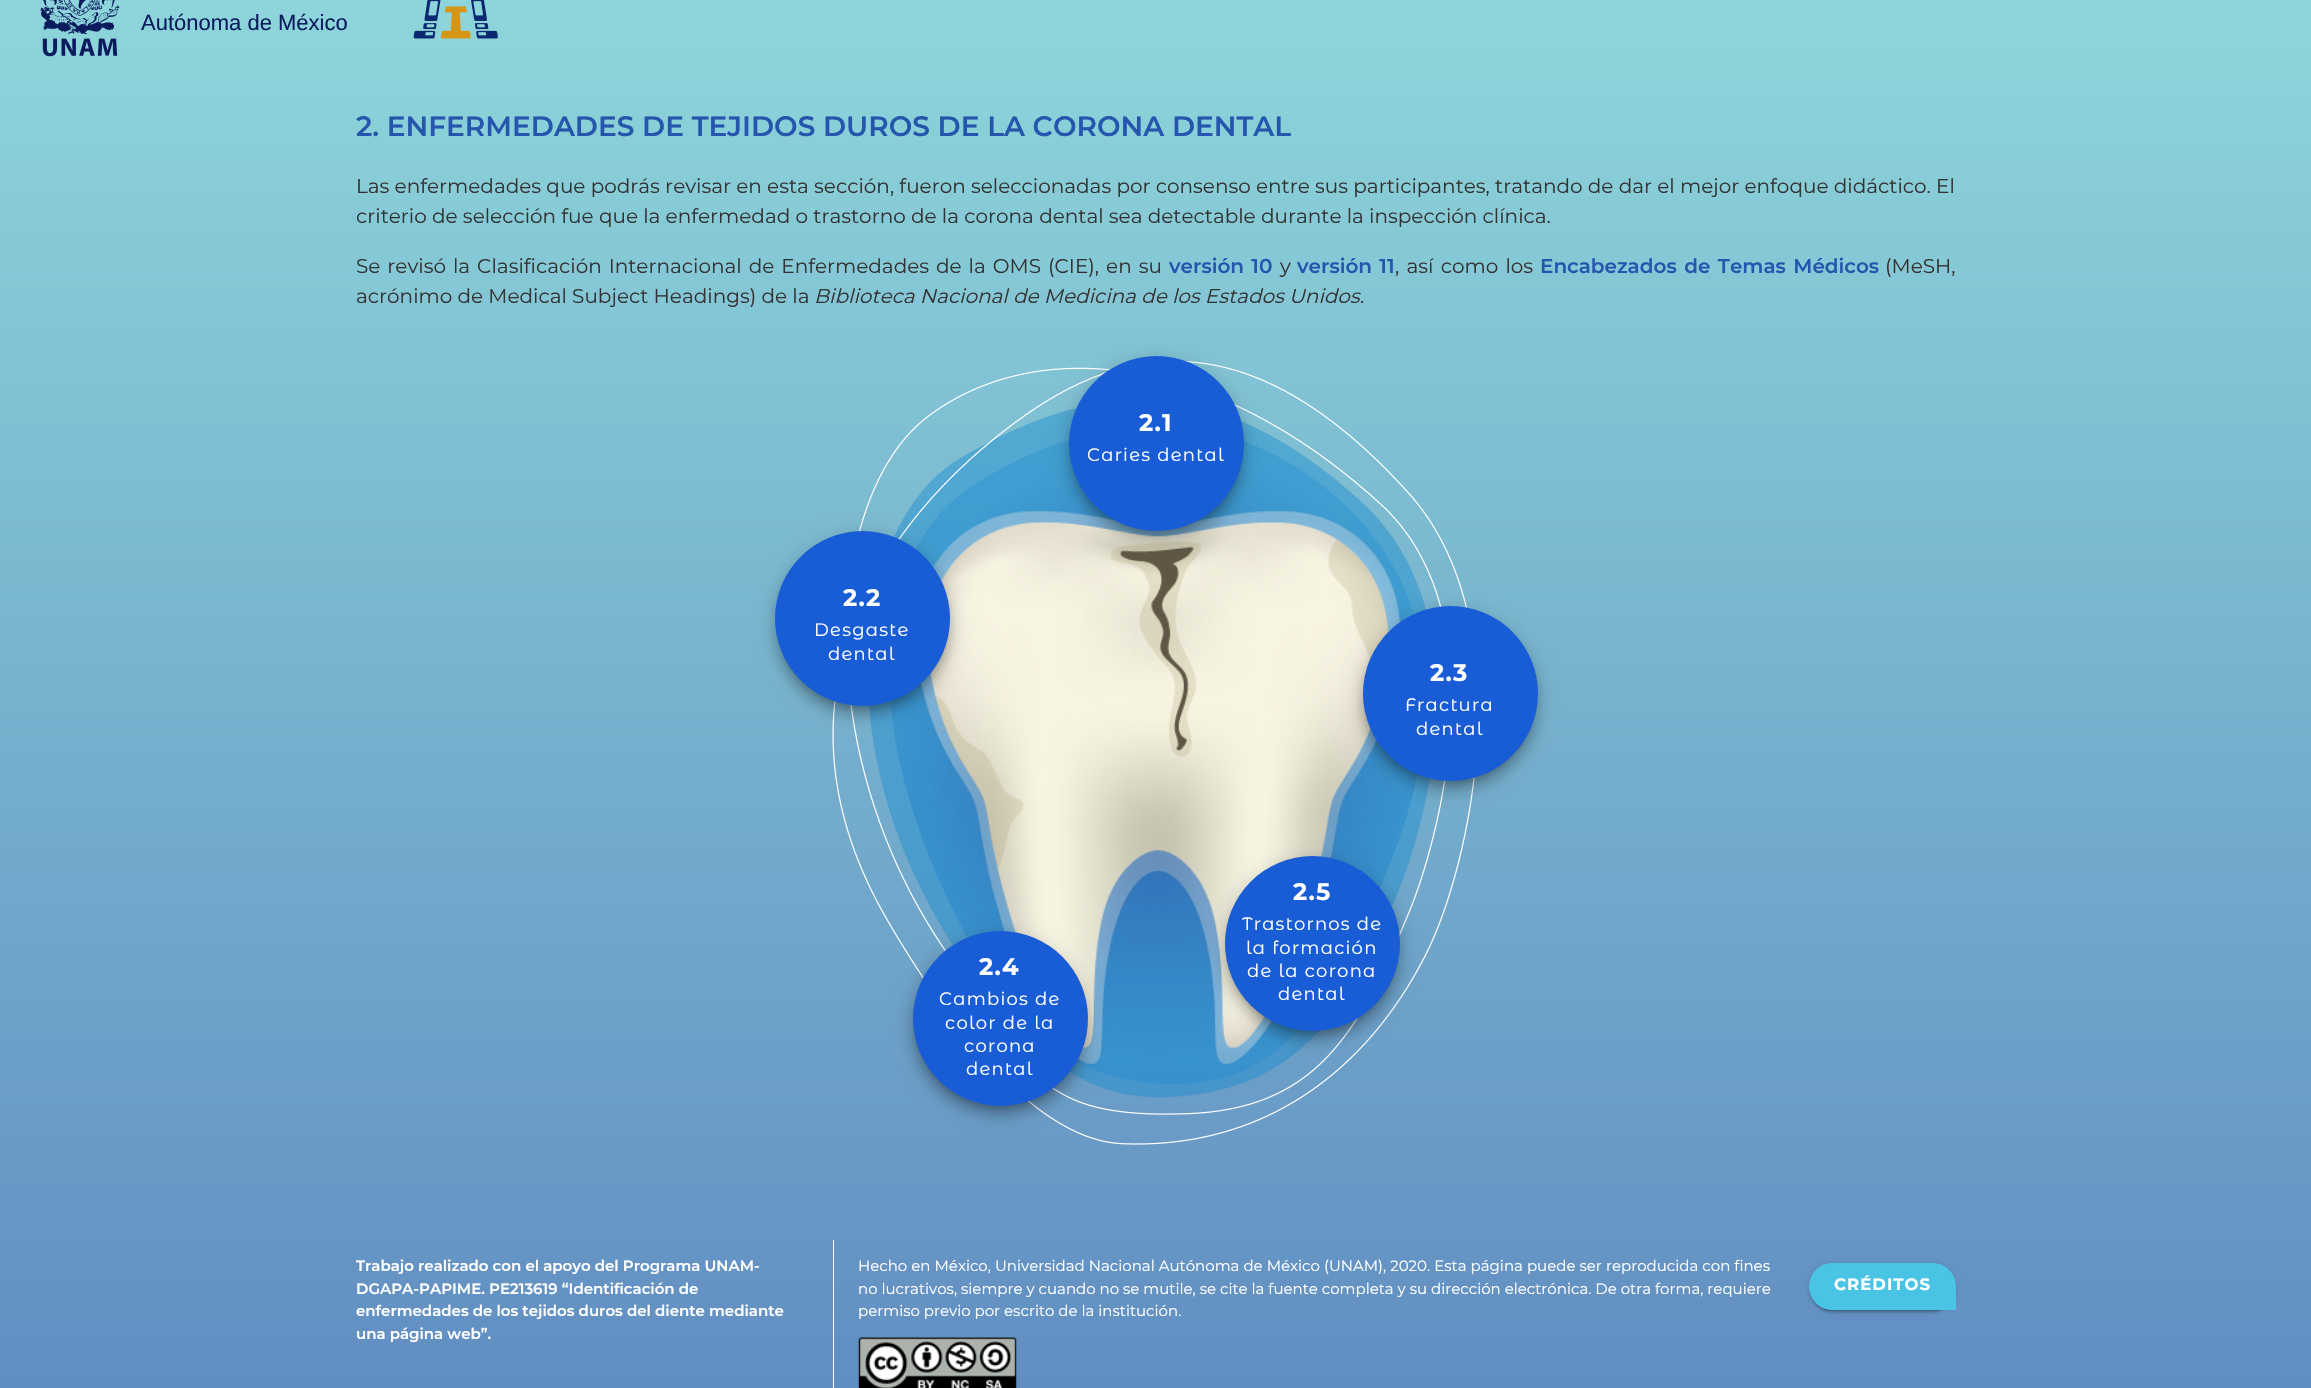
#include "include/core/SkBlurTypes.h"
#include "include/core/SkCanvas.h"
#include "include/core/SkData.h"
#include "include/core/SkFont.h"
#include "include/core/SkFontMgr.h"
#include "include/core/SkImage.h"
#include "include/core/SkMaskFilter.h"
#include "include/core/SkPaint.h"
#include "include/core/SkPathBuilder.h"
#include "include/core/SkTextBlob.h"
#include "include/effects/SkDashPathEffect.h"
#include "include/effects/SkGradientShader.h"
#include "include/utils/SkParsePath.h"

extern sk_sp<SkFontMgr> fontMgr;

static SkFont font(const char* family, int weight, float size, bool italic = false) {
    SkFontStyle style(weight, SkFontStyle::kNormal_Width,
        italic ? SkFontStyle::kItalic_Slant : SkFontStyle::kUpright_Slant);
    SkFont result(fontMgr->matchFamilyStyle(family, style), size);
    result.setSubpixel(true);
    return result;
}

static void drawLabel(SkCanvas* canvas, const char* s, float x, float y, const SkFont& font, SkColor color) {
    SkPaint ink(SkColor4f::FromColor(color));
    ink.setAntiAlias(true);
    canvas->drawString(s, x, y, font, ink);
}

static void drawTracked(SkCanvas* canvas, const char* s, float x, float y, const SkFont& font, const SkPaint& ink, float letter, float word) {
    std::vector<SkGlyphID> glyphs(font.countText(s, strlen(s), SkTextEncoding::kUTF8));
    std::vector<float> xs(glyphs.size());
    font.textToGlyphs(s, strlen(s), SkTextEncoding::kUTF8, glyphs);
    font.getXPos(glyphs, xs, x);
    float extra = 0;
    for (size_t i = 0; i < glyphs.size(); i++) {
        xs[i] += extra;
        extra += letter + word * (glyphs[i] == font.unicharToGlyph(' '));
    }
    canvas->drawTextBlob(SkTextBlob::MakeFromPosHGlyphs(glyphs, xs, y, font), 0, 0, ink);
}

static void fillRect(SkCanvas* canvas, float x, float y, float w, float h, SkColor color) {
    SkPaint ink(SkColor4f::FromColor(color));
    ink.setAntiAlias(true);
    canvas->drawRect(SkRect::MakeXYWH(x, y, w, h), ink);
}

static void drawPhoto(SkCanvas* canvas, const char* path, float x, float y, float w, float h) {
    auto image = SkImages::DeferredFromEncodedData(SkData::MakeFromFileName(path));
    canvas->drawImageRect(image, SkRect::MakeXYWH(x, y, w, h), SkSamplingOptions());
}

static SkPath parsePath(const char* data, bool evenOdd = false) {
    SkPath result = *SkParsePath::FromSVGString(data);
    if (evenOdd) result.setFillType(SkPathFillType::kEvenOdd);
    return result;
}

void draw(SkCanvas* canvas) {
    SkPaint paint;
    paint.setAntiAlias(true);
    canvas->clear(0xFFFFFFFF);
    {
        const SkColor colors[] = {0xFF90DADC, 0xFF608CC1};
        const float stops[] = {0, 1};
        const SkPoint ends[] = {{1156, -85}, {1156, 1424}};
        paint.setShader(SkGradientShader::MakeLinear(ends, colors, stops, 2, SkTileMode::kClamp));
        paint.setAlpha(255);
    }
    canvas->drawRect(SkRect::MakeXYWH(0, 0, 2311, 1388), paint);
    drawPhoto(canvas, "assets/img1.png", 40, 0, 80, 57);
    SkFont font1 = font("Liberation Sans", 400, 22);
    drawLabel(canvas, "Autónoma de México", 141, 30, font1, 0xFF0B1B5E);
    drawPhoto(canvas, "assets/img2.png", 413, 0, 85, 39);
    SkFont font2 = font("Montserrat", 600, 28);
    drawLabel(canvas, "2. ENFERMEDADES DE TEJIDOS DUROS DE LA CORONA DENTAL", 356, 136, font2, 0xFF2555AD);
    SkFont font3 = font("Montserrat", 400, 20);
    drawLabel(canvas, "Las enfermedades que podrás revisar en esta sección, fueron seleccionadas por consenso entre sus participantes, tratando de dar el mejor enfoque didáctico. El", 356, 193, font3, 0xFF333333);
    drawLabel(canvas, "criterio de selección fue que la enfermedad o trastorno de la corona dental sea detectable durante la inspección clínica.", 356, 223, font3, 0xFF333333);
    paint.setShader(nullptr);
    paint.setColor(0xFF333333);
    drawTracked(canvas, "Se revisó la Clasificación Internacional de Enfermedades", 356, 273, font3, paint, 0, 1.75f);
    drawTracked(canvas, "de la OMS (CIE), en su", 936, 273, font3, paint, 0, 1.75f);
    SkFont font4 = font("Montserrat", 600, 20);
    paint.setColor(0xFF2555AD);
    drawTracked(canvas, "versión 10", 1169, 273, font4, paint, 0, 1.75f);
    drawLabel(canvas, "y", 1280, 273, font3, 0xFF333333);
    drawTracked(canvas, "versión 11", 1297, 273, font4, paint, 0, 1.75f);
    paint.setColor(0xFF333333);
    drawTracked(canvas, ", así como los", 1395, 273, font3, paint, 0, 2);
    paint.setColor(0xFF2555AD);
    drawTracked(canvas, "Encabezados de Temas Médicos", 1540, 273, font4, paint, 0, 2);
    drawLabel(canvas, "(MeSH,", 1885, 273, font3, 0xFF333333);
    drawLabel(canvas, "acrónimo de Medical Subject Headings) de la", 356, 303, font3, 0xFF333333);
    SkFont font5 = font("Montserrat", 400, 20, true);
    drawLabel(canvas, "Biblioteca Nacional de Medicina de los Estados Unidos.", 814, 303, font5, 0xFF333333);
    drawPhoto(canvas, "assets/img3.png", 832, 360, 643, 785);
    drawPhoto(canvas, "assets/img4.png", 921, 510, 480, 554);
    paint.setColor(0x1F000000);
    paint.setMaskFilter(SkMaskFilter::MakeBlur(kNormal_SkBlurStyle, 9));
    canvas->drawRoundRect(SkRect::MakeXYWH(1066, 358, 180, 180), 90, 90, paint);
    paint.setMaskFilter(nullptr);
    paint.setColor(0x24000000);
    paint.setMaskFilter(SkMaskFilter::MakeBlur(kNormal_SkBlurStyle, 6));
    canvas->drawRoundRect(SkRect::MakeXYWH(1068, 365, 177, 178), 88.5f, 88.5f, paint);
    paint.setMaskFilter(nullptr);
    paint.setColor(0x33000000);
    paint.setMaskFilter(SkMaskFilter::MakeBlur(kNormal_SkBlurStyle, 3));
    canvas->drawRoundRect(SkRect::MakeXYWH(1073, 366, 167, 168), 83.5f, 83.5f, paint);
    paint.setMaskFilter(nullptr);
    paint.setColor(0xFF185DD5);
    canvas->drawCircle(1156.5f, 443.5f, 87.5f, paint);
    SkFont font6 = font("Montserrat Alternates", 700, 24);
    paint.setColor(0xFFFFFFFF);
    drawTracked(canvas, "2.1", 1139, 431, font6, paint, 1.25f, 0);
    SkFont font7 = font("Montserrat Alternates", 400, 18);
    drawTracked(canvas, "Caries dental", 1087, 461, font7, paint, 1.25f, 0);
    paint.setColor(0x1F000000);
    paint.setMaskFilter(SkMaskFilter::MakeBlur(kNormal_SkBlurStyle, 9));
    canvas->drawRoundRect(SkRect::MakeXYWH(773, 533, 180, 180), 90, 90, paint);
    paint.setMaskFilter(nullptr);
    paint.setColor(0x24000000);
    paint.setMaskFilter(SkMaskFilter::MakeBlur(kNormal_SkBlurStyle, 6));
    canvas->drawRoundRect(SkRect::MakeXYWH(774, 540, 177, 178), 88.5f, 88.5f, paint);
    paint.setMaskFilter(nullptr);
    paint.setColor(0x33000000);
    paint.setMaskFilter(SkMaskFilter::MakeBlur(kNormal_SkBlurStyle, 3));
    canvas->drawRoundRect(SkRect::MakeXYWH(779, 541, 167, 168), 83.5f, 83.5f, paint);
    paint.setMaskFilter(nullptr);
    paint.setColor(0xFF185DD5);
    canvas->drawCircle(862.5f, 618.5f, 87.5f, paint);
    paint.setColor(0xFFFFFFFF);
    drawTracked(canvas, "2.2", 843, 606, font6, paint, 1.25f, 0);
    drawTracked(canvas, "Desgaste", 814, 636, font7, paint, 1.25f, 0);
    drawTracked(canvas, "dental", 828, 660, font7, paint, 1.25f, 0);
    paint.setColor(0x1F000000);
    paint.setMaskFilter(SkMaskFilter::MakeBlur(kNormal_SkBlurStyle, 9));
    canvas->drawRoundRect(SkRect::MakeXYWH(1360, 608, 180, 180), 90, 90, paint);
    paint.setMaskFilter(nullptr);
    paint.setColor(0x24000000);
    paint.setMaskFilter(SkMaskFilter::MakeBlur(kNormal_SkBlurStyle, 6));
    canvas->drawRoundRect(SkRect::MakeXYWH(1361, 615, 178, 178), 89, 89, paint);
    paint.setMaskFilter(nullptr);
    paint.setColor(0x33000000);
    paint.setMaskFilter(SkMaskFilter::MakeBlur(kNormal_SkBlurStyle, 3));
    canvas->drawRoundRect(SkRect::MakeXYWH(1366, 616, 168, 168), 84, 84, paint);
    paint.setMaskFilter(nullptr);
    paint.setColor(0xFF185DD5);
    canvas->drawCircle(1450.5f, 693.5f, 87.5f, paint);
    paint.setColor(0xFFFFFFFF);
    drawTracked(canvas, "2.3", 1430, 681, font6, paint, 1.25f, 0);
    drawTracked(canvas, "Fractura", 1405, 711, font7, paint, 1.25f, 0);
    drawTracked(canvas, "dental", 1416, 735, font7, paint, 1.25f, 0);
    paint.setColor(0x1F000000);
    paint.setMaskFilter(SkMaskFilter::MakeBlur(kNormal_SkBlurStyle, 9));
    canvas->drawRoundRect(SkRect::MakeXYWH(1223, 858, 180, 180), 90, 90, paint);
    paint.setMaskFilter(nullptr);
    paint.setColor(0x24000000);
    paint.setMaskFilter(SkMaskFilter::MakeBlur(kNormal_SkBlurStyle, 6));
    canvas->drawRoundRect(SkRect::MakeXYWH(1224, 865, 177, 178), 88.5f, 88.5f, paint);
    paint.setMaskFilter(nullptr);
    paint.setColor(0x33000000);
    paint.setMaskFilter(SkMaskFilter::MakeBlur(kNormal_SkBlurStyle, 3));
    canvas->drawRoundRect(SkRect::MakeXYWH(1229, 866, 167, 168), 83.5f, 83.5f, paint);
    paint.setMaskFilter(nullptr);
    paint.setColor(0xFF185DD5);
    canvas->drawCircle(1312.5f, 943.5f, 87.5f, paint);
    paint.setColor(0xFFFFFFFF);
    drawTracked(canvas, "2.5", 1293, 900, font6, paint, 1.25f, 0);
    drawTracked(canvas, "Trastornos de", 1242, 930, font7, paint, 1.25f, 0);
    drawTracked(canvas, "la formación", 1246, 954, font7, paint, 1.25f, 0);
    drawTracked(canvas, "de la corona", 1247, 977, font7, paint, 1.25f, 0);
    drawTracked(canvas, "dental", 1278, 1000, font7, paint, 1.25f, 0);
    paint.setColor(0x1F000000);
    paint.setMaskFilter(SkMaskFilter::MakeBlur(kNormal_SkBlurStyle, 9));
    canvas->drawRoundRect(SkRect::MakeXYWH(910, 933, 180, 180), 90, 90, paint);
    paint.setMaskFilter(nullptr);
    paint.setColor(0x24000000);
    paint.setMaskFilter(SkMaskFilter::MakeBlur(kNormal_SkBlurStyle, 6));
    canvas->drawRoundRect(SkRect::MakeXYWH(911, 940, 178, 178), 89, 89, paint);
    paint.setMaskFilter(nullptr);
    paint.setColor(0x33000000);
    paint.setMaskFilter(SkMaskFilter::MakeBlur(kNormal_SkBlurStyle, 3));
    canvas->drawRoundRect(SkRect::MakeXYWH(916, 941, 168, 168), 84, 84, paint);
    paint.setMaskFilter(nullptr);
    paint.setColor(0xFF185DD5);
    canvas->drawCircle(1000.5f, 1018.5f, 87.5f, paint);
    paint.setColor(0xFFFFFFFF);
    drawTracked(canvas, "2.4", 979, 975, font6, paint, 1.25f, 0);
    drawTracked(canvas, "Cambios de", 939, 1005, font7, paint, 1.25f, 0);
    drawTracked(canvas, "color de la", 945, 1029, font7, paint, 1.25f, 0);
    drawTracked(canvas, "corona", 964, 1052, font7, paint, 1.25f, 0);
    drawTracked(canvas, "dental", 966, 1075, font7, paint, 1.25f, 0);
    fillRect(canvas, 833, 1240, 1, 148, 0xFFFFFFFF);
    SkFont font8 = font("Montserrat", 600, 15);
    drawLabel(canvas, "Trabajo realizado con el apoyo del Programa UNAM-", 356, 1271, font8, 0xFFFFFFFF);
    drawLabel(canvas, "DGAPA-PAPIME. PE213619 “Identificación de", 356, 1294, font8, 0xFFFFFFFF);
    drawLabel(canvas, "enfermedades de los tejidos duros del diente mediante", 356, 1316, font8, 0xFFFFFFFF);
    drawLabel(canvas, "una página web”.", 356, 1339, font8, 0xFFFFFFFF);
    SkFont font9 = font("Montserrat", 400, 15);
    drawTracked(canvas, "Hecho en México, Universidad Nacional Autónoma de México (UNAM), 2020. Esta página puede ser reproducida con fines", 858, 1271, font9, paint, 0, 0.1f);
    drawLabel(canvas, "no lucrativos, siempre y cuando no se mutile, se cite la fuente completa y su dirección electrónica. De otra forma, requiere", 858, 1294, font9, 0xFFFFFFFF);
    drawLabel(canvas, "permiso previo por escrito de la institución.", 858, 1316, font9, 0xFFFFFFFF);
    drawPhoto(canvas, "assets/img5.png", 858, 1337, 159, 51);
    paint.setColor(0x1F000000);
    paint.setMaskFilter(SkMaskFilter::MakeBlur(kNormal_SkBlurStyle, 3));
    canvas->drawRoundRect(SkRect::MakeXYWH(1809, 1264, 147, 47), 23.5f, 23.5f, paint);
    paint.setMaskFilter(nullptr);
    paint.setColor(0x24000000);
    paint.setMaskFilter(SkMaskFilter::MakeBlur(kNormal_SkBlurStyle, 1));
    canvas->drawRoundRect(SkRect::MakeXYWH(1809, 1265, 147, 48), 24, 24, paint);
    paint.setMaskFilter(nullptr);
    paint.setColor(0x33000000);
    paint.setMaskFilter(SkMaskFilter::MakeBlur(kNormal_SkBlurStyle, 0.5f));
    canvas->drawRoundRect(SkRect::MakeXYWH(1811, 1269, 143, 42), 21, 21, paint);
    paint.setMaskFilter(nullptr);
    paint.setColor(0xFF49C4E4);
    canvas->drawPath(parsePath("M1832.5 1263H1932.5C1945.5 1263 1956 1273.5 1956 1286.5V1310H1832.5C1819.5 1310 1809 1299.5 1809 1286.5C1809 1273.5 1819.5 1263 1832.5 1263Z"), paint);
    SkFont font10 = font("Montserrat", 700, 16.5f);
    paint.setColor(0xFFFFFFFF);
    drawTracked(canvas, "CRÉDITOS", 1834, 1290, font10, paint, 1, 0);
}
